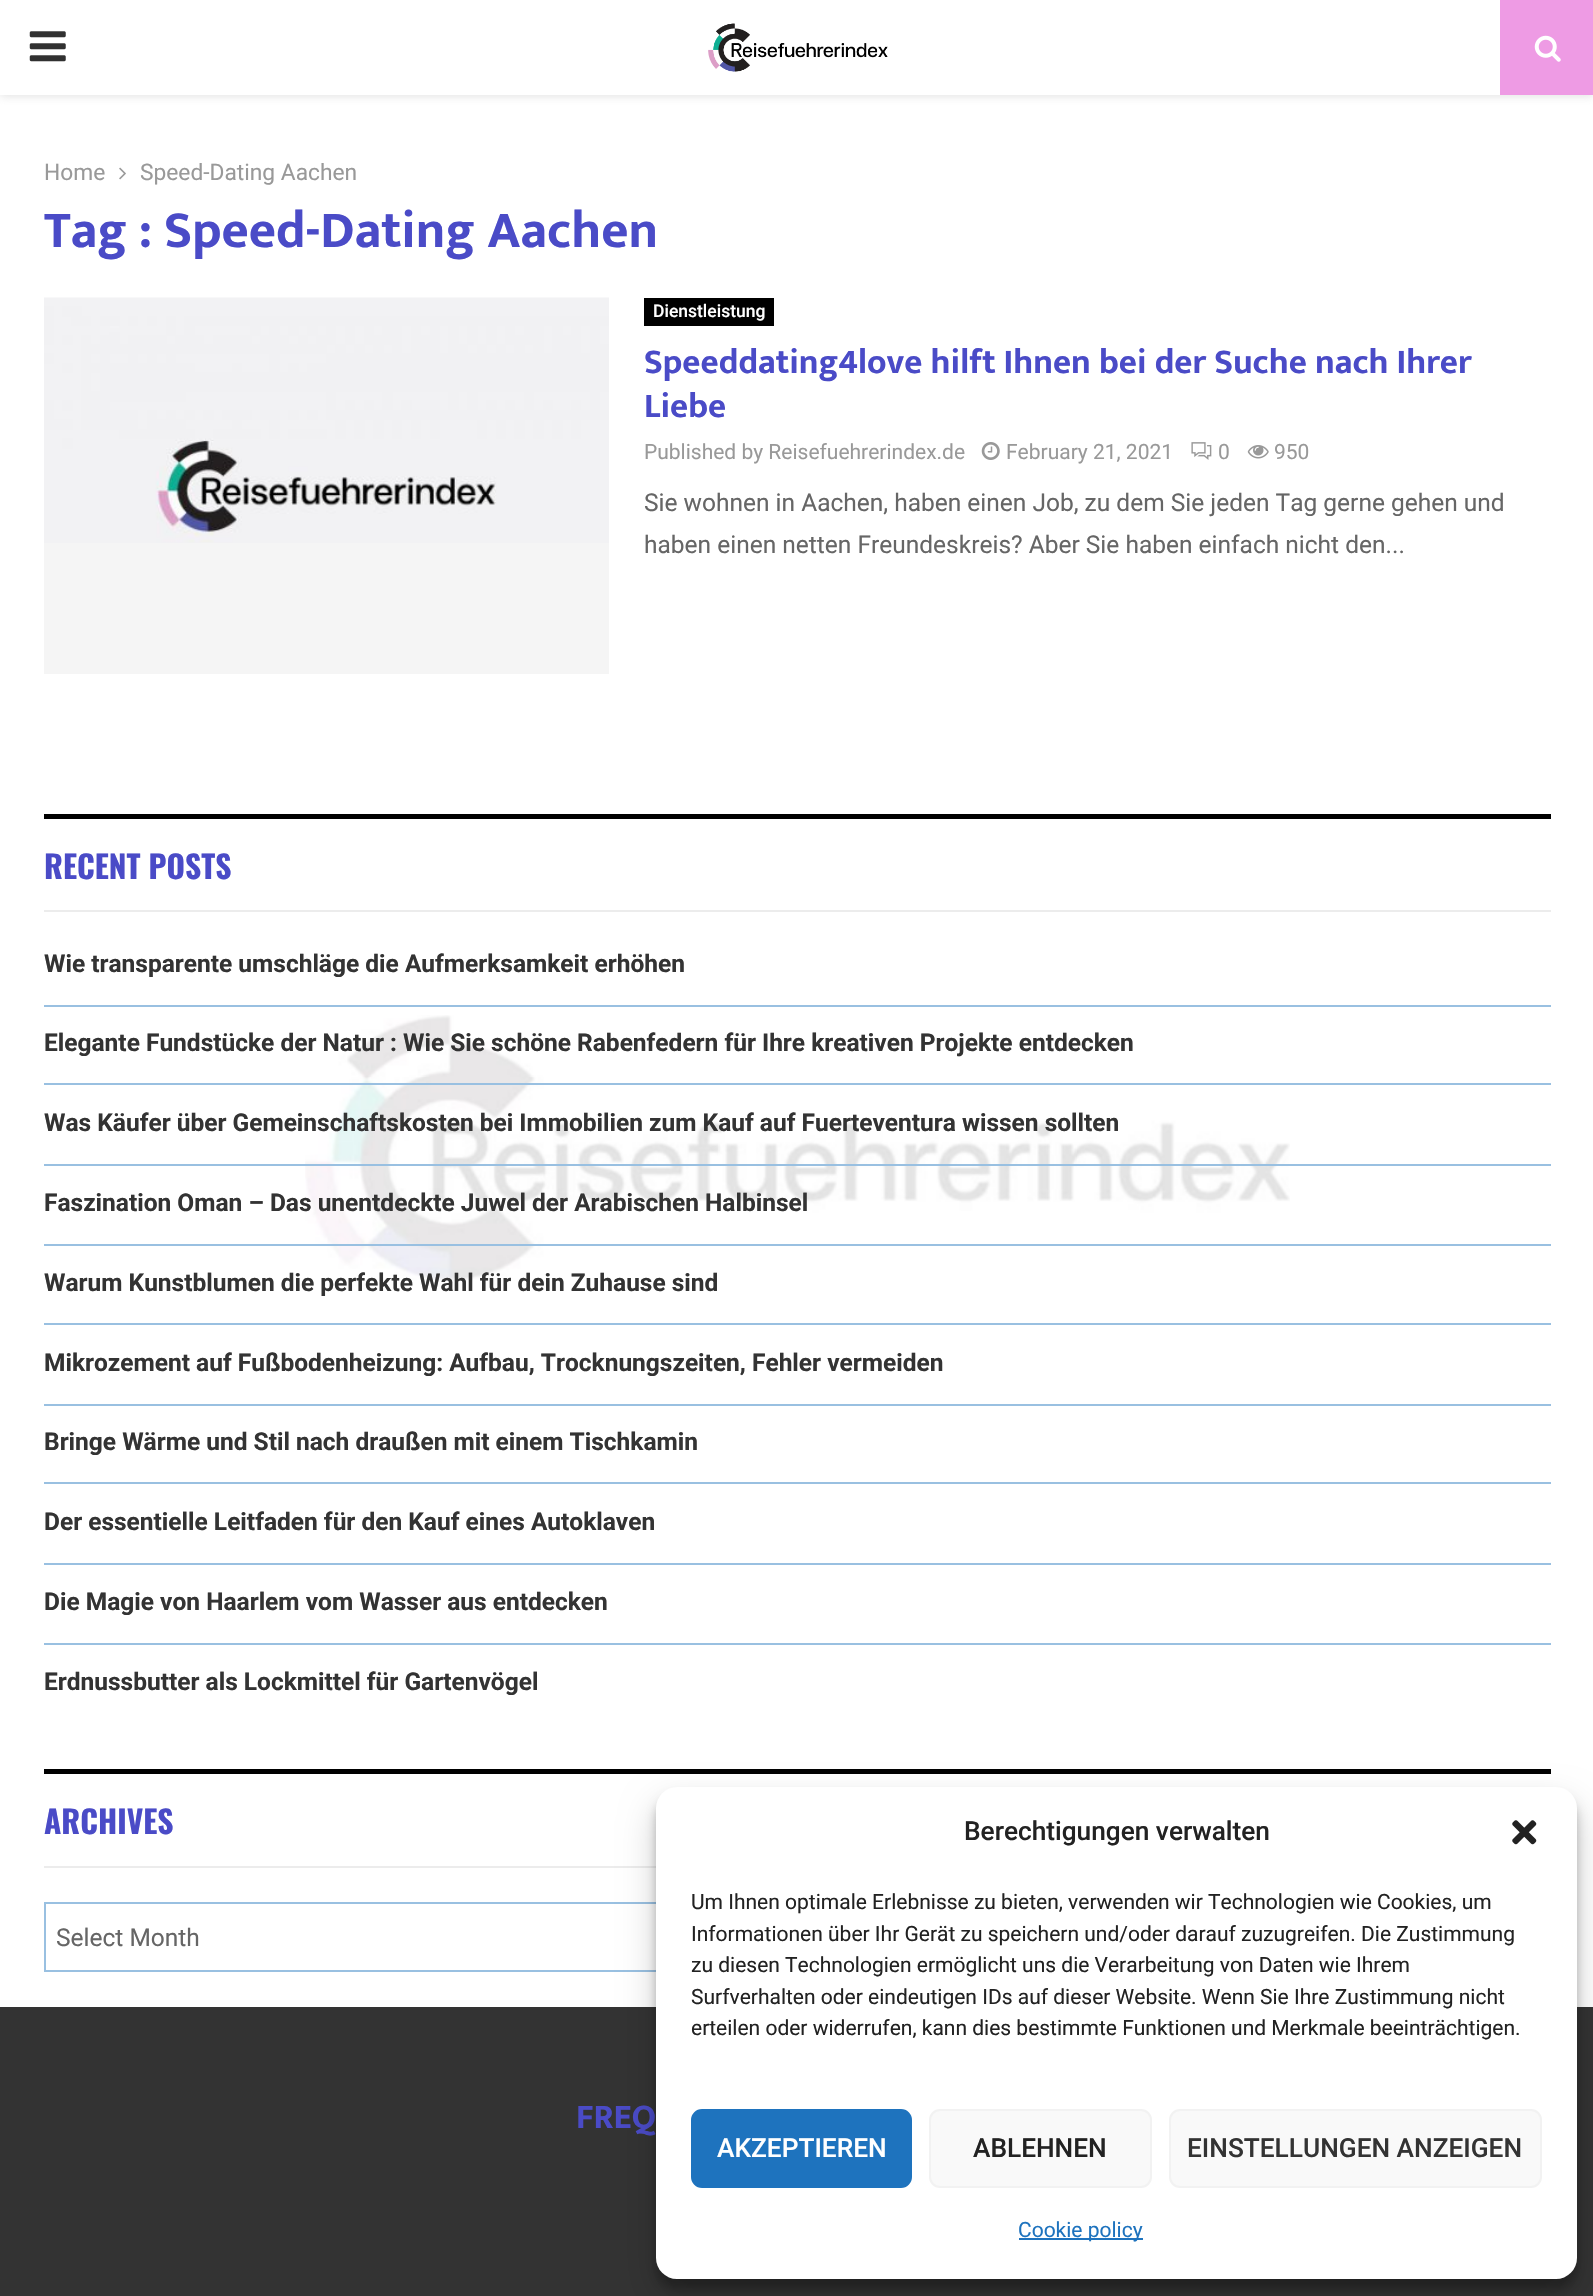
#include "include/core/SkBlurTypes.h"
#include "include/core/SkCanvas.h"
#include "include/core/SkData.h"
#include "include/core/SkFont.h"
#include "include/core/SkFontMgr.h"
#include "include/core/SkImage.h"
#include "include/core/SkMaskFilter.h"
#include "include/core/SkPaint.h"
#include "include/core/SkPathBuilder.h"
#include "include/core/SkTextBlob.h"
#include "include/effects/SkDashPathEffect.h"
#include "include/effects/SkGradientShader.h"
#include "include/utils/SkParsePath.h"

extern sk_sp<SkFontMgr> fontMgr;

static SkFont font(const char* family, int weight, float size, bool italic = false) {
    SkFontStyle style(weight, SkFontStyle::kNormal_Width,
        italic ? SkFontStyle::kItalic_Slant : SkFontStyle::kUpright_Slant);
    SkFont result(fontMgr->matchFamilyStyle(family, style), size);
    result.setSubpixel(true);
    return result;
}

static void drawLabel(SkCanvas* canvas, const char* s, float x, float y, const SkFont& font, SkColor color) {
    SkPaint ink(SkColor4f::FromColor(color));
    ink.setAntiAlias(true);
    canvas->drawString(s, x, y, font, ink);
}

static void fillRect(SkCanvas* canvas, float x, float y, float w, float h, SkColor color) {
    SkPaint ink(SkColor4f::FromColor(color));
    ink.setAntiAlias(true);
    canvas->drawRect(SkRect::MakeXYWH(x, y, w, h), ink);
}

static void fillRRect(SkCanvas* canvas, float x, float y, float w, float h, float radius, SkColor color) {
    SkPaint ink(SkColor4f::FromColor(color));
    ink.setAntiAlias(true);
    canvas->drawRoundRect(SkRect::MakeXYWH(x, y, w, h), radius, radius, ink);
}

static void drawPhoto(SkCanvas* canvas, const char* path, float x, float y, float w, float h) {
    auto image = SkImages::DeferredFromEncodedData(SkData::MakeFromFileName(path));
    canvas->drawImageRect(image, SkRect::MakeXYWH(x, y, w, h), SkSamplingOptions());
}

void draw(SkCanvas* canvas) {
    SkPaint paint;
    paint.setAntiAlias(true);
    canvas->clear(0xFFFFFFFF);
    drawPhoto(canvas, "assets/img1.png", 305, 1015, 985, 266);
    paint.setColor(0x75BEBEBE);
    paint.setMaskFilter(SkMaskFilter::MakeBlur(kNormal_SkBlurStyle, 4.5f));
    canvas->drawRect(SkRect::MakeXYWH(0, 2, 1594, 94), paint);
    paint.setMaskFilter(nullptr);
    fillRect(canvas, 0, 0, 1500, 95, 0xFFFFFFFF);
    drawPhoto(canvas, "assets/img2.png", 29, 31, 37, 31);
    drawPhoto(canvas, "assets/img3.png", 708, 23, 180, 49);
    fillRect(canvas, 1500, 0, 93, 95, 0xFFEE9BE4);
    drawPhoto(canvas, "assets/img4.png", 1534, 35, 27, 27);
    SkFont font1 = font("Roboto", 400, 22.75f);
    drawLabel(canvas, "Home", 44, 180, font1, 0xFF999999);
    drawPhoto(canvas, "assets/img5.png", 119, 167, 7, 13);
    drawLabel(canvas, "Speed-Dating Aachen", 140, 180, font1, 0xFF999999);
    SkFont font2 = font("Mukta Vaani", 700, 52.5f);
    drawLabel(canvas, "Tag : Speed-Dating Aachen", 44, 247, font2, 0xFF4A4BC7);
    fillRect(canvas, 44, 543, 565, 131, 0xFFF5F5F5);
    drawPhoto(canvas, "assets/img6.png", 44, 297, 565, 246);
    fillRect(canvas, 644, 298, 130, 28, 0xFF000000);
    SkFont font3 = font("Roboto", 500, 17.5f);
    drawLabel(canvas, "Dienstleistung", 653, 317, font3, 0xFFFFFFFF);
    SkFont font4 = font("Mukta Vaani", 700, 35);
    drawLabel(canvas, "Speeddating4love hilft Ihnen bei der Suche nach Ihrer", 644, 373, font4, 0xFF4A4BC7);
    drawLabel(canvas, "Liebe", 644, 417, font4, 0xFF4A4BC7);
    SkFont font5 = font("Roboto", 400, 21);
    drawLabel(canvas, "Published by Reisefuehrerindex.de", 644, 459, font5, 0xFF999999);
    drawPhoto(canvas, "assets/img7.png", 981, 442, 19, 18);
    drawLabel(canvas, "February 21, 2021", 1006, 459, font5, 0xFF999999);
    drawPhoto(canvas, "assets/img8.png", 1191, 442, 21, 18);
    drawLabel(canvas, "0", 1218, 459, font5, 0xFF999999);
    drawPhoto(canvas, "assets/img9.png", 1247, 445, 22, 14);
    drawLabel(canvas, "950", 1274, 459, font5, 0xFF999999);
    SkFont font6 = font("Roboto", 400, 24.5f);
    drawLabel(canvas, "Sie wohnen in Aachen, haben einen Job, zu dem Sie jeden Tag gerne gehen und", 644, 511, font6, 0xFF666666);
    drawLabel(canvas, "haben einen netten Freundeskreis? Aber Sie haben einfach nicht den...", 644, 553, font6, 0xFF666666);
    fillRect(canvas, 44, 910, 1507, 2, 0xFFECECEC);
    fillRect(canvas, 44, 814, 1507, 5, 0xFF000000);
    SkFont font7 = font("Oswald", 700, 31.5f);
    drawLabel(canvas, "RECENT POSTS", 44, 879, font7, 0xFF4A4BC7);
    fillRect(canvas, 44, 1005, 1507, 2, 0xFF99C0E1);
    SkFont font8 = font("Roboto", 700, 24.5f);
    drawLabel(canvas, "Wie transparente umschläge die Aufmerksamkeit erhöhen", 44, 972, font8, 0xFF333333);
    fillRect(canvas, 44, 1083, 1507, 2, 0xFF99C0E1);
    drawLabel(canvas, "Elegante Fundstücke der Natur : Wie Sie schöne Rabenfedern für Ihre kreativen Projekte entdecken", 44, 1051, font8, 0xFF333333);
    fillRect(canvas, 44, 1164, 1507, 2, 0xFF99C0E1);
    drawLabel(canvas, "Was Käufer über Gemeinschaftskosten bei Immobilien zum Kauf auf Fuerteventura wissen sollten", 44, 1131, font8, 0xFF333333);
    fillRect(canvas, 44, 1244, 1507, 2, 0xFF99C0E1);
    drawLabel(canvas, "Faszination Oman – Das unentdeckte Juwel der Arabischen Halbinsel", 44, 1211, font8, 0xFF333333);
    fillRect(canvas, 44, 1323, 1507, 2, 0xFF99C0E1);
    drawLabel(canvas, "Warum Kunstblumen die perfekte Wahl für dein Zuhause sind", 44, 1291, font8, 0xFF333333);
    fillRect(canvas, 44, 1404, 1507, 2, 0xFF99C0E1);
    drawLabel(canvas, "Mikrozement auf Fußbodenheizung: Aufbau, Trocknungszeiten, Fehler vermeiden", 44, 1371, font8, 0xFF333333);
    fillRect(canvas, 44, 1482, 1507, 2, 0xFF99C0E1);
    drawLabel(canvas, "Bringe Wärme und Stil nach draußen mit einem Tischkamin", 44, 1450, font8, 0xFF333333);
    fillRect(canvas, 44, 1563, 1507, 2, 0xFF99C0E1);
    drawLabel(canvas, "Der essentielle Leitfaden für den Kauf eines Autoklaven", 44, 1530, font8, 0xFF333333);
    fillRect(canvas, 44, 1643, 1507, 2, 0xFF99C0E1);
    drawLabel(canvas, "Die Magie von Haarlem vom Wasser aus entdecken", 44, 1610, font8, 0xFF333333);
    drawLabel(canvas, "Erdnussbutter als Lockmittel für Gartenvögel", 44, 1690, font8, 0xFF333333);
    fillRect(canvas, 44, 1866, 612, 2, 0xFFECECEC);
    fillRect(canvas, 44, 1769, 1507, 5, 0xFF000000);
    drawLabel(canvas, "ARCHIVES", 44, 1834, font7, 0xFF4A4BC7);
    paint.setStroke(true);
    paint.setStrokeWidth(2);
    paint.setColor(0xFF99C0E1);
    canvas->drawRect(SkRect::MakeXYWH(45, 1903, 1505, 68), paint);
    drawLabel(canvas, "Select Month", 56, 1946, font6, 0xFF666666);
    fillRect(canvas, 0, 2007, 1593, 289, 0xFF333333);
    drawLabel(canvas, "FREQ", 576, 2128, font4, 0xFF4A4BC7);
    paint.setStroke(false);
    paint.setColor(0x3B000000);
    paint.setMaskFilter(SkMaskFilter::MakeBlur(kNormal_SkBlurStyle, 5));
    canvas->drawRoundRect(SkRect::MakeXYWH(656, 1797, 921, 492), 21, 21, paint);
    paint.setMaskFilter(nullptr);
    paint.setColor(0x30000000);
    paint.setMaskFilter(SkMaskFilter::MakeBlur(kNormal_SkBlurStyle, 17.5f));
    canvas->drawRoundRect(SkRect::MakeXYWH(656, 1804, 921, 492), 21, 21, paint);
    paint.setMaskFilter(nullptr);
    fillRRect(canvas, 656, 1787, 921, 492, 21, 0xFFFFFFFF);
    SkFont font9 = font("Roboto", 500, 26.25f);
    drawLabel(canvas, "Berechtigungen verwalten", 964, 1840, font9, 0xFF222222);
    drawPhoto(canvas, "assets/img10.png", 1512, 1820, 25, 25);
    drawLabel(canvas, "Um Ihnen optimale Erlebnisse zu bieten, verwenden wir Technologien wie Cookies, um", 691, 1909, font5, 0xFF222222);
    drawLabel(canvas, "Informationen über Ihr Gerät zu speichern und/oder darauf zuzugreifen. Die Zustimmung", 691, 1941, font5, 0xFF222222);
    drawLabel(canvas, "zu diesen Technologien ermöglicht uns die Verarbeitung von Daten wie Ihrem", 691, 1972, font5, 0xFF222222);
    drawLabel(canvas, "Surfverhalten oder eindeutigen IDs auf dieser Website. Wenn Sie Ihre Zustimmung nicht", 691, 2004, font5, 0xFF222222);
    drawLabel(canvas, "erteilen oder widerrufen, kann dies bestimmte Funktionen und Merkmale beeinträchtigen.", 691, 2035, font5, 0xFF222222);
    paint.setColor(0xFF1E73BE);
    canvas->drawRoundRect(SkRect::MakeXYWH(692, 2110, 219, 77), 10, 10, paint);
    paint.setStroke(true);
    canvas->drawRoundRect(SkRect::MakeXYWH(692, 2110, 219, 77), 10, 10, paint);
    drawLabel(canvas, "AKZEPTIEREN", 717, 2157, font9, 0xFFFFFFFF);
    paint.setStroke(false);
    paint.setColor(0xFFF9F9F9);
    canvas->drawRoundRect(SkRect::MakeXYWH(930, 2110, 221, 77), 10, 10, paint);
    paint.setStroke(true);
    paint.setColor(0xFFF2F2F2);
    canvas->drawRoundRect(SkRect::MakeXYWH(930, 2110, 221, 77), 10, 10, paint);
    drawLabel(canvas, "ABLEHNEN", 973, 2157, font9, 0xFF222222);
    paint.setStroke(false);
    paint.setColor(0xFFF9F9F9);
    canvas->drawRoundRect(SkRect::MakeXYWH(1170, 2110, 371, 77), 10, 10, paint);
    paint.setStroke(true);
    paint.setColor(0xFFF2F2F2);
    canvas->drawRoundRect(SkRect::MakeXYWH(1170, 2110, 371, 77), 10, 10, paint);
    drawLabel(canvas, "EINSTELLUNGEN ANZEIGEN", 1187, 2157, font9, 0xFF333333);
    fillRect(canvas, 1019, 2238, 124, 2, 0xFF1E73BE);
    drawLabel(canvas, "Cookie policy", 1018, 2237, font5, 0xFF1E73BE);
}
